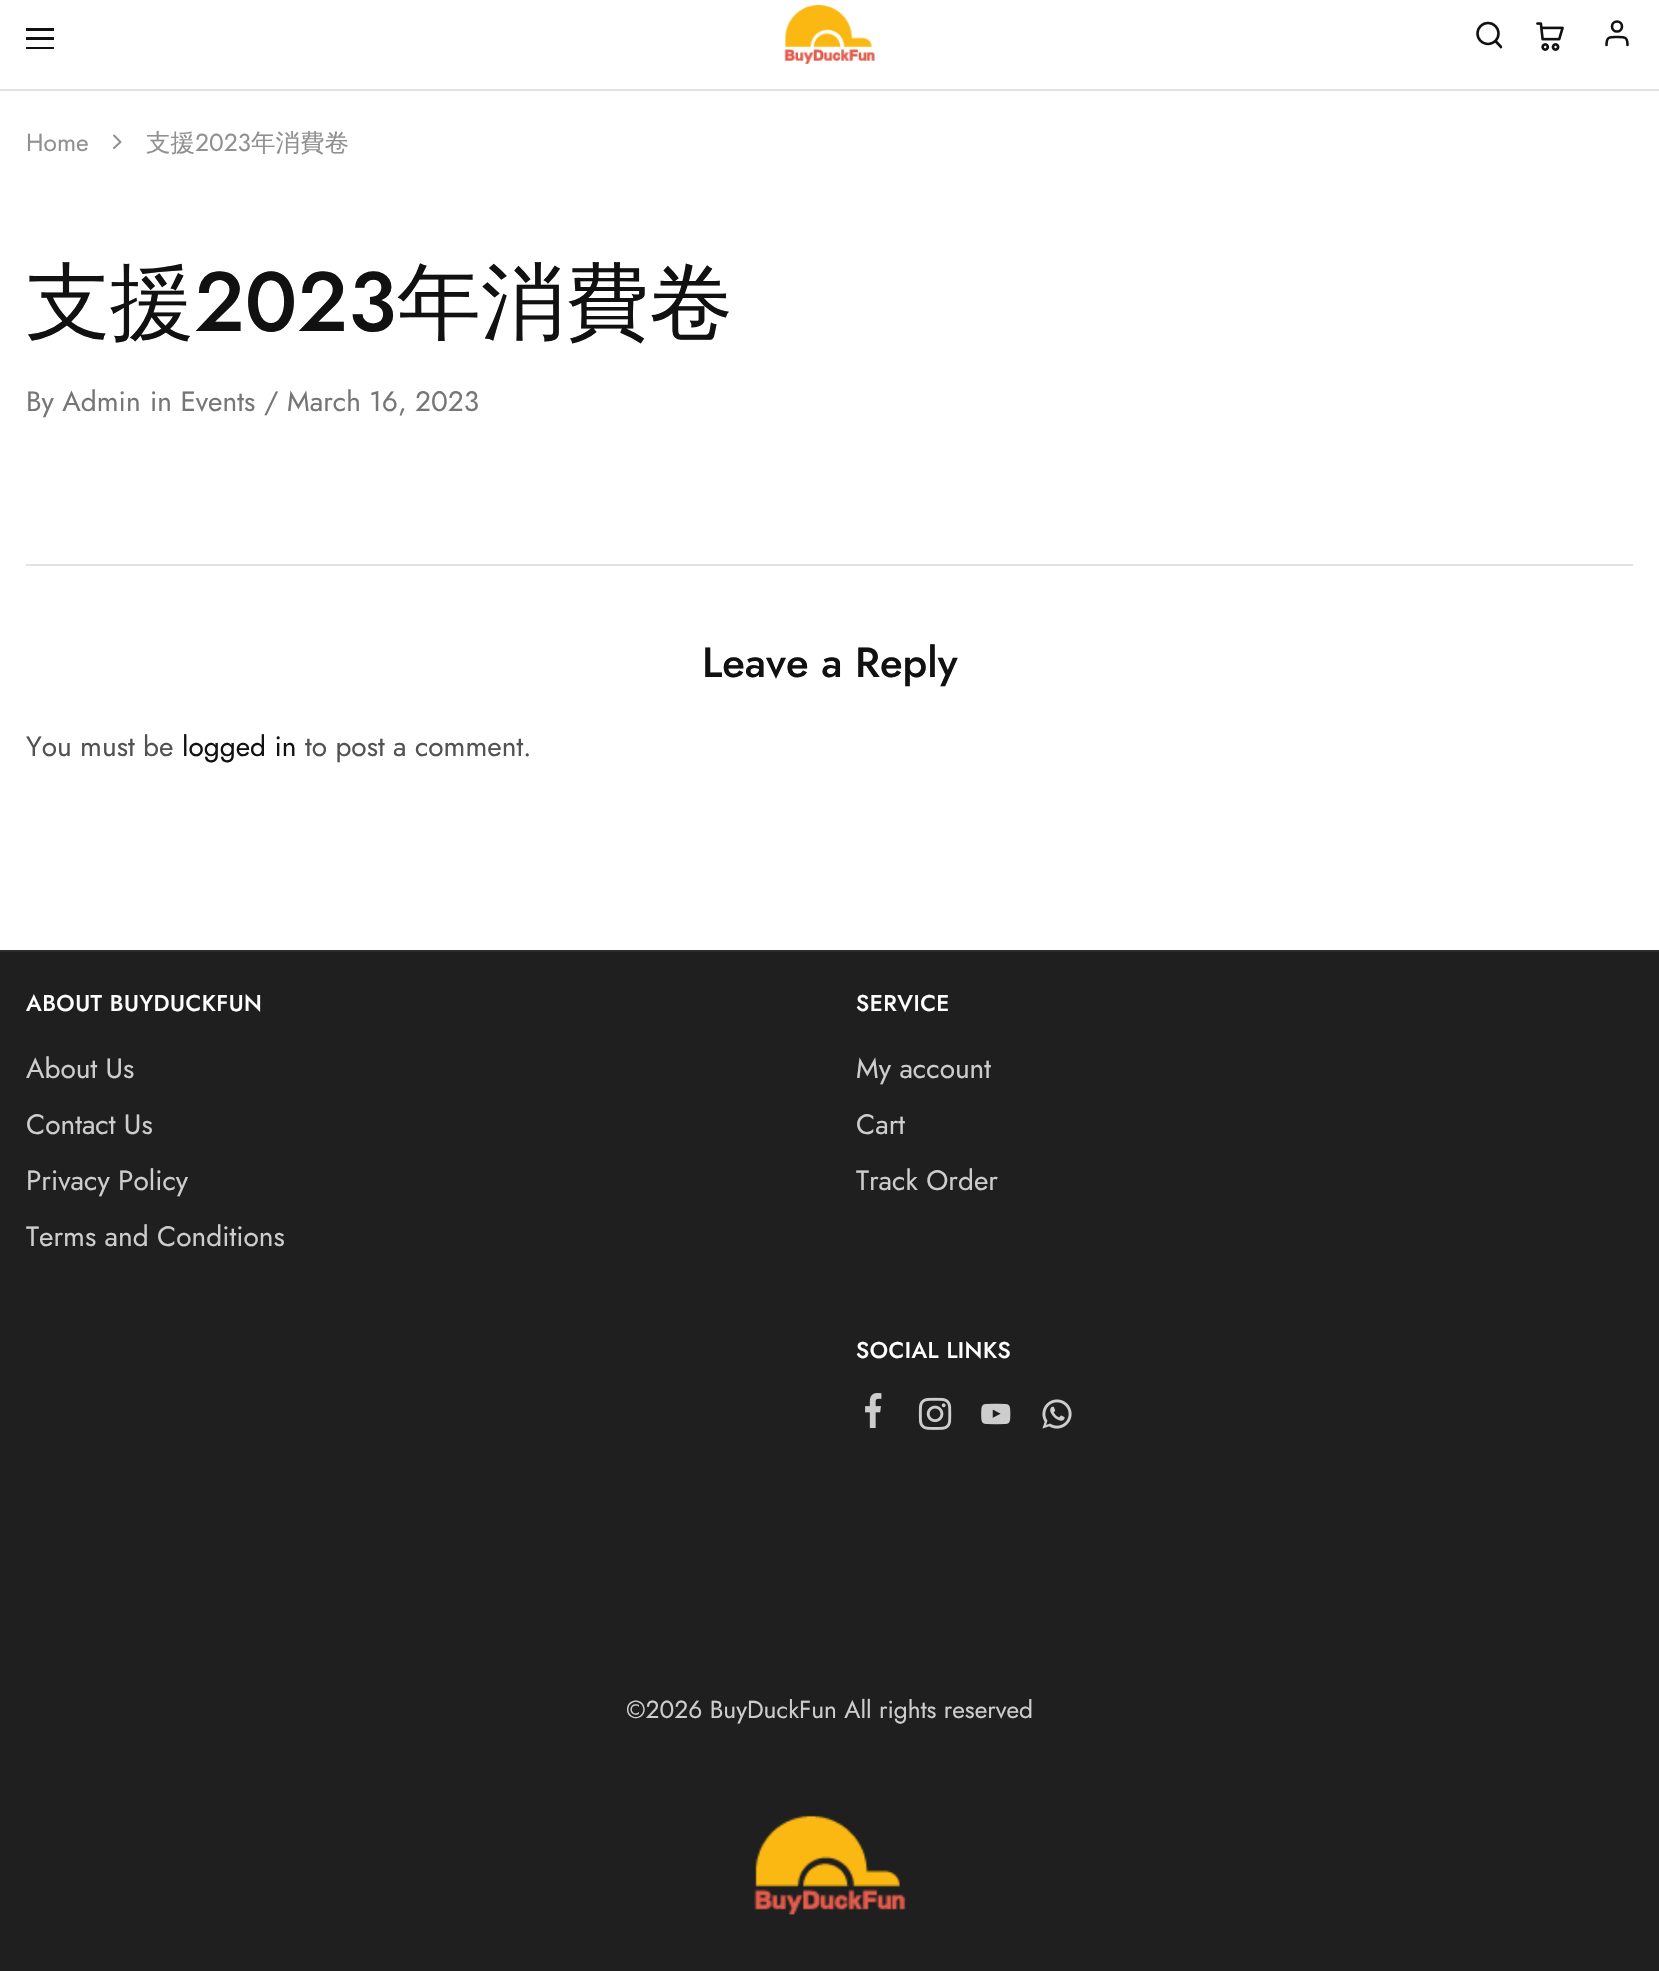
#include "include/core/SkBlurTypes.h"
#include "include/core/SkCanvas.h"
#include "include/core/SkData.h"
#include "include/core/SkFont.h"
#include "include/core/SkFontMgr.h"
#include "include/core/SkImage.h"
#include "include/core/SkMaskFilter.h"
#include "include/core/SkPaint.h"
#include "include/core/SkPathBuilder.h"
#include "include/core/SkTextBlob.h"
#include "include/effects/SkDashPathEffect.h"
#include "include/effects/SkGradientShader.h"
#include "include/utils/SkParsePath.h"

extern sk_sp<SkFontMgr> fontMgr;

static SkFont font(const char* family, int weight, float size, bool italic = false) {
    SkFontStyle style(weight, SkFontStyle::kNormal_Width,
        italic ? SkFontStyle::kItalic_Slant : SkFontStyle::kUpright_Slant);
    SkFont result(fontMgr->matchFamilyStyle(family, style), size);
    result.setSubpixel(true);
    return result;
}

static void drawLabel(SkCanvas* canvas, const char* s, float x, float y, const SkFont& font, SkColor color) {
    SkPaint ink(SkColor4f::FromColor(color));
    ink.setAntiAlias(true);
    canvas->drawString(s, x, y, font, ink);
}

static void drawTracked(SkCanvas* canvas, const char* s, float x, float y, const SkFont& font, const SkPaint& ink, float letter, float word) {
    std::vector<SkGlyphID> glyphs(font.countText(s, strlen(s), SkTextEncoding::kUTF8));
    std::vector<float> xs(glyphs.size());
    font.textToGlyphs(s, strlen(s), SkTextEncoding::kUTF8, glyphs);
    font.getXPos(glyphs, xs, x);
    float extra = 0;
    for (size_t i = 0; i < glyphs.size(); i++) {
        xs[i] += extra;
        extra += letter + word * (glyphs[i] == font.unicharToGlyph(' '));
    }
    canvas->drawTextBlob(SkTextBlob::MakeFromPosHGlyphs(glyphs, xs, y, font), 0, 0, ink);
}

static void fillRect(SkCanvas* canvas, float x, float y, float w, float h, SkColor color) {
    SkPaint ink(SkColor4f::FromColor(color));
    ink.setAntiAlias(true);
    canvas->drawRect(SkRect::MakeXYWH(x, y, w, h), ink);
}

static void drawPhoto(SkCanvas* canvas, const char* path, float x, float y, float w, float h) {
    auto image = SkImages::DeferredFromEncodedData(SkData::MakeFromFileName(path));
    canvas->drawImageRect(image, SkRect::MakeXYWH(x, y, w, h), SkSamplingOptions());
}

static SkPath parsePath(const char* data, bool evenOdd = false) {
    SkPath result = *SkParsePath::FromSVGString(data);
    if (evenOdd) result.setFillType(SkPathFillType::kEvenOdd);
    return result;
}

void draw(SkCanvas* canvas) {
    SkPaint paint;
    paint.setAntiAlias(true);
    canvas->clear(0xFFFFFFFF);
    fillRect(canvas, 0, 89, 1659, 2, 0xFFE2E2E2);
    fillRect(canvas, 26, 28, 28, 3, 0xFF111111);
    fillRect(canvas, 26, 37, 28, 3, 0xFF111111);
    fillRect(canvas, 26, 47, 28, 2, 0xFF111111);
    drawPhoto(canvas, "assets/img1.png", 784, 5, 91, 59);
    paint.setStroke(true);
    paint.setStrokeWidth(2.6f);
    paint.setColor(0xFF111111);
    canvas->drawCircle(1488, 33.5f, 10.5f, paint);
    paint.setStrokeCap(SkPaint::kRound_Cap);
    paint.setStrokeJoin(SkPaint::kRound_Join);
    canvas->drawPath(parsePath("M1501 47L1495.5 41"), paint);
    drawPhoto(canvas, "assets/img2.png", 1536, 22, 28, 29);
    canvas->drawPath(parsePath("M1627.5 45C1627.5 36.5 1624.5 37 1617 37C1609.5 37 1606.5 36.5 1606.5 45"), paint);
    paint.setStrokeCap(SkPaint::kButt_Cap);
    paint.setStrokeJoin(SkPaint::kMiter_Join);
    canvas->drawCircle(1617, 26.5f, 5, paint);
    SkFont font1 = font("Jost", 400, 24.5f);
    drawLabel(canvas, "Home", 26, 151, font1, 0xFF909090);
    paint.setStrokeWidth(2);
    paint.setStrokeCap(SkPaint::kRound_Cap);
    paint.setStrokeJoin(SkPaint::kRound_Join);
    paint.setColor(0xFF909090);
    canvas->drawPath(parsePath("M114 148L120.5 142L114 135.5"), paint);
    SkFont font2 = font("WenQuanYi Zen Hei", 500, 24.5f);
    drawLabel(canvas, "支援", 146, 151, font2, 0xFF909090);
    drawLabel(canvas, "2023", 195, 151, font1, 0xFF909090);
    drawLabel(canvas, "年消費卷", 251, 151, font2, 0xFF909090);
    SkFont font3 = font("WenQuanYi Zen Hei", 500, 84);
    drawLabel(canvas, "支援", 26, 331, font3, 0xFF111111);
    SkFont font4 = font("Jost", 500, 84);
    drawLabel(canvas, "2023", 194, 331, font4, 0xFF111111);
    drawLabel(canvas, "年消費卷", 397, 331, font3, 0xFF111111);
    SkFont font5 = font("Jost", 400, 28);
    drawLabel(canvas, "By Admin", 26, 411, font5, 0xFF767676);
    drawLabel(canvas, "in Events", 150, 411, font5, 0xFF767676);
    drawLabel(canvas, "/", 264, 411, font5, 0xFF767676);
    drawLabel(canvas, "March 16, 2023", 287, 411, font5, 0xFF767676);
    fillRect(canvas, 26, 564, 1607, 2, 0xFFE2E2E2);
    SkFont font6 = font("Jost", 500, 42);
    drawLabel(canvas, "Leave a Reply", 702, 677, font6, 0xFF111111);
    drawLabel(canvas, "You must be", 26, 756, font5, 0xFF525252);
    drawLabel(canvas, "logged in", 182, 756, font5, 0xFF111111);
    drawLabel(canvas, "to post a comment.", 305, 756, font5, 0xFF525252);
    fillRect(canvas, 0, 952, 1659, 1019, 0xFF1F1F1F);
    fillRect(canvas, 0, 950, 1659, 2, 0xFF2B2B2B);
    SkFont font7 = font("Jost", 500, 22.75f);
    paint.setStroke(false);
    paint.setColor(0xFFFFFFFF);
    drawTracked(canvas, "ABOUT BUYDUCKFUN", 26, 1011, font7, paint, 0.5f, 0);
    drawLabel(canvas, "About Us", 26, 1078, font5, 0xFFCDCDCD);
    drawLabel(canvas, "Contact Us", 26, 1134, font5, 0xFFCDCDCD);
    drawLabel(canvas, "Privacy Policy", 26, 1190, font5, 0xFFCDCDCD);
    drawLabel(canvas, "Terms and Conditions", 26, 1246, font5, 0xFFCDCDCD);
    drawTracked(canvas, "SERVICE", 856, 1011, font7, paint, 0.5f, 0);
    drawLabel(canvas, "My account", 856, 1078, font5, 0xFFCDCDCD);
    drawLabel(canvas, "Cart", 856, 1134, font5, 0xFFCDCDCD);
    drawLabel(canvas, "Track Order", 856, 1190, font5, 0xFFCDCDCD);
    drawTracked(canvas, "SOCIAL LINKS", 856, 1358, font7, paint, 0.5f, 0);
    drawPhoto(canvas, "assets/img3.png", 865, 1393, 17, 35);
    drawPhoto(canvas, "assets/img4.png", 918, 1397, 34, 33);
    drawPhoto(canvas, "assets/img5.png", 981, 1403, 30, 22);
    drawPhoto(canvas, "assets/img6.png", 1042, 1399, 30, 30);
    drawLabel(canvas, "©2026 BuyDuckFun All rights reserved", 626, 1718, font1, 0xFFCDCDCD);
    drawPhoto(canvas, "assets/img7.png", 754, 1815, 152, 100);
}
